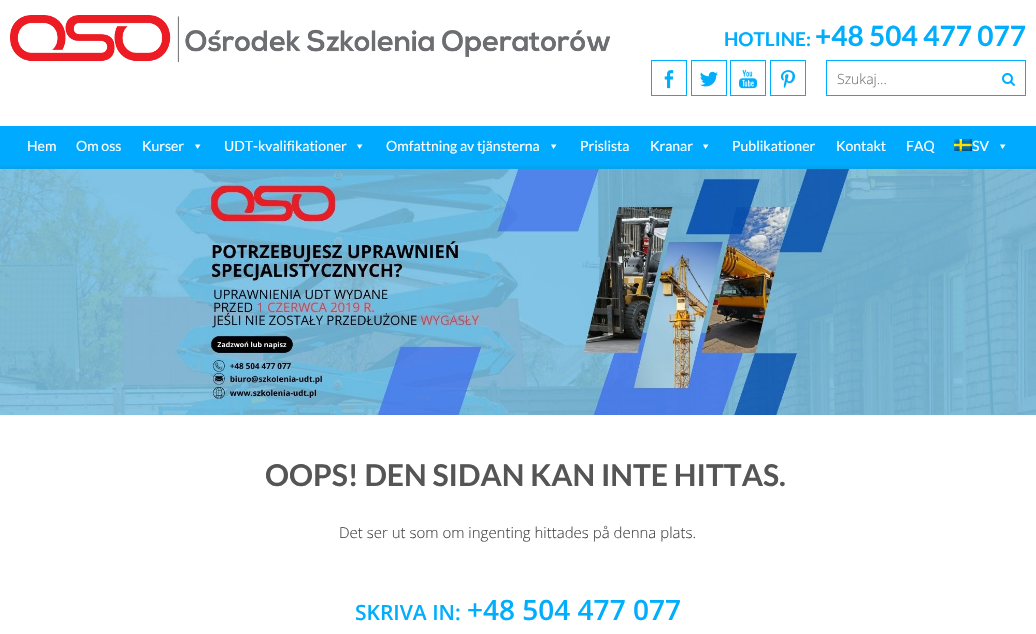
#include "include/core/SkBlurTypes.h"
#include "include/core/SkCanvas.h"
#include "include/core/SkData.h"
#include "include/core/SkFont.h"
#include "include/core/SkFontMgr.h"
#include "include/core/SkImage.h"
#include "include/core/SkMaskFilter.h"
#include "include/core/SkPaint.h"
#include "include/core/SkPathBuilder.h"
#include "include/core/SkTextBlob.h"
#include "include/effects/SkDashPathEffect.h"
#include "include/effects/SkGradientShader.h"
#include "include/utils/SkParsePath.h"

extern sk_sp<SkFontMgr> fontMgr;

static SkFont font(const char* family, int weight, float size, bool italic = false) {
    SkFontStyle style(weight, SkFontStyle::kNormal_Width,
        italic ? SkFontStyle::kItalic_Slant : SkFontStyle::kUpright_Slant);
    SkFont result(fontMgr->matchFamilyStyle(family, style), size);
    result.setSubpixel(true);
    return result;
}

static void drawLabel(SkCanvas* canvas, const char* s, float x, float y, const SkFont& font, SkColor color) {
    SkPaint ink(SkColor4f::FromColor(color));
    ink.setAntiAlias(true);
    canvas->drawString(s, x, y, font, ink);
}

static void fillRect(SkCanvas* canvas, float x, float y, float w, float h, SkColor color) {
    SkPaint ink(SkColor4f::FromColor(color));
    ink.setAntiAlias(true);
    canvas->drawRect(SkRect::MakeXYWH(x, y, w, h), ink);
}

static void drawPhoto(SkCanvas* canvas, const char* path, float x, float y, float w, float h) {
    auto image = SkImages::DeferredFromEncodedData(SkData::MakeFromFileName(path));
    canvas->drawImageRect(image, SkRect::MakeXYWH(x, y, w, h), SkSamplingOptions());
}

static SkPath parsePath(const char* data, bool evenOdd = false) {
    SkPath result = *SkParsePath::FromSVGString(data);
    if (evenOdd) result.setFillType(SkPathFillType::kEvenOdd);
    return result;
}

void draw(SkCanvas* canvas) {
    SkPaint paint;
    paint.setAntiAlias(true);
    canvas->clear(0xFFFFFFFF);
    drawPhoto(canvas, "assets/img1.png", 10, 15, 600, 47);
    SkFont font1 = font("Lato", 700, 19);
    drawLabel(canvas, "HOTLINE:", 724, 46, font1, 0xFF01AEFD);
    SkFont font2 = font("Lato", 700, 28);
    drawLabel(canvas, "+48 504 477 077", 815, 46, font2, 0xFF01AEFD);
    paint.setStroke(true);
    paint.setStrokeWidth(1);
    paint.setColor(0xFF01AEFD);
    canvas->drawRect(SkRect::MakeXYWH(651.5f, 60.5f, 35, 35), paint);
    drawPhoto(canvas, "assets/img2.png", 664, 70, 10, 19);
    canvas->drawRect(SkRect::MakeXYWH(691.5f, 60.5f, 35, 35), paint);
    drawPhoto(canvas, "assets/img3.png", 700, 71, 18, 16);
    canvas->drawRect(SkRect::MakeXYWH(730.5f, 60.5f, 35, 35), paint);
    drawPhoto(canvas, "assets/img4.png", 739, 70, 18, 19);
    canvas->drawRect(SkRect::MakeXYWH(770.5f, 60.5f, 35, 35), paint);
    drawPhoto(canvas, "assets/img5.png", 781, 70, 14, 19);
    canvas->drawRect(SkRect::MakeXYWH(826.5f, 60.5f, 199, 35), paint);
    SkFont font3 = font("Open Sans", 300, 14);
    drawLabel(canvas, "Szukaj...", 837, 84, font3, 0xFF757575);
    drawPhoto(canvas, "assets/img6.png", 1002, 73, 13, 13);
    fillRect(canvas, 0, 126, 1036, 40, 0xFF00ABFF);
    fillRect(canvas, 0, 166, 1036, 3, 0xFF04A3ED);
    SkFont font4 = font("Lato", 400, 14);
    drawLabel(canvas, "Hem", 27, 151, font4, 0xFFFFFFFF);
    drawLabel(canvas, "Om oss", 76, 151, font4, 0xFFFFFFFF);
    drawLabel(canvas, "Kurser", 142, 151, font4, 0xFFFFFFFF);
    paint.setStroke(false);
    paint.setColor(0xFFFFFFFF);
    canvas->drawPath(parsePath("M200.5 144.5L197.5 149L195 144.5Z"), paint);
    drawLabel(canvas, "UDT-kvalifikationer", 224, 151, font4, 0xFFFFFFFF);
    canvas->drawPath(parsePath("M362.5 144.5L359.5 149L357 144.5Z"), paint);
    drawLabel(canvas, "Omfattning av tjänsterna", 386, 151, font4, 0xFFFFFFFF);
    canvas->drawPath(parsePath("M556.5 144.5L553.5 149L551 144.5Z"), paint);
    drawLabel(canvas, "Prislista", 580, 151, font4, 0xFFFFFFFF);
    drawLabel(canvas, "Kranar", 650, 151, font4, 0xFFFFFFFF);
    canvas->drawPath(parsePath("M708.5 144.5L705.5 149L703 144.5Z"), paint);
    drawLabel(canvas, "Publikationer", 732, 151, font4, 0xFFFFFFFF);
    drawLabel(canvas, "Kontakt", 836, 151, font4, 0xFFFFFFFF);
    drawLabel(canvas, "FAQ", 906, 151, font4, 0xFFFFFFFF);
    drawPhoto(canvas, "assets/img7.png", 954, 139, 18, 12);
    drawLabel(canvas, "SV", 972, 151, font4, 0xFFFFFFFF);
    canvas->drawPath(parsePath("M1005.5 144.5L1002.5 149L1000 144.5Z"), paint);
    drawPhoto(canvas, "assets/img8.png", 0, 169, 1036, 246);
    SkFont font5 = font("Lato", 700, 30);
    drawLabel(canvas, "OOPS! DEN SIDAN KAN INTE HITTAS.", 265, 486, font5, 0xFF555555);
    SkFont font6 = font("Open Sans", 300, 15);
    drawLabel(canvas, "Det ser ut som om ingenting hittades på denna plats.", 339, 538, font6, 0xFF444444);
    SkFont font7 = font("Open Sans", 600, 21);
    drawLabel(canvas, "SKRIVA IN:", 355, 620, font7, 0xFF01AEFD);
    SkFont font8 = font("Open Sans", 600, 28);
    drawLabel(canvas, "+48 504 477 077", 467, 620, font8, 0xFF01AEFD);
}
